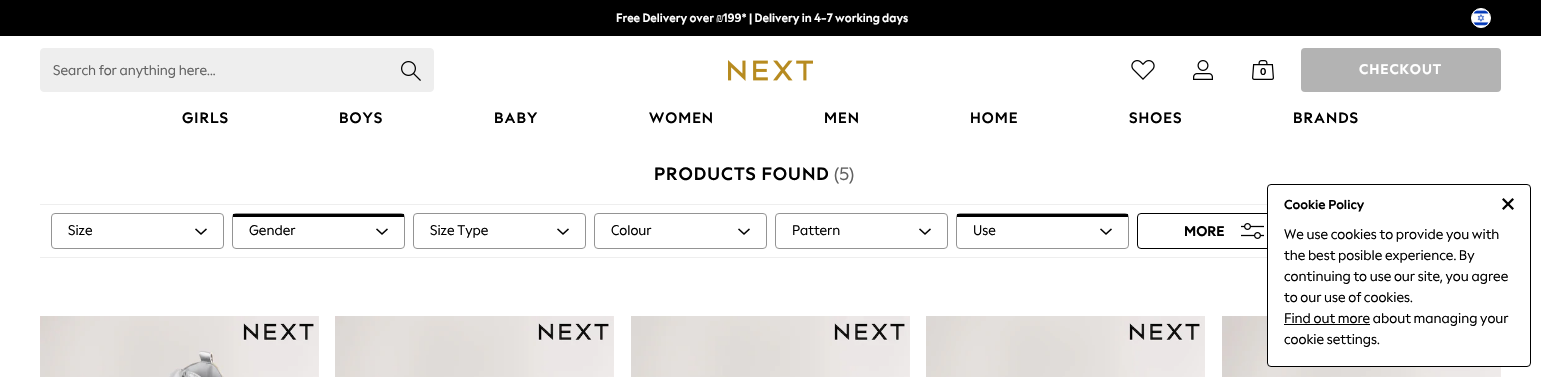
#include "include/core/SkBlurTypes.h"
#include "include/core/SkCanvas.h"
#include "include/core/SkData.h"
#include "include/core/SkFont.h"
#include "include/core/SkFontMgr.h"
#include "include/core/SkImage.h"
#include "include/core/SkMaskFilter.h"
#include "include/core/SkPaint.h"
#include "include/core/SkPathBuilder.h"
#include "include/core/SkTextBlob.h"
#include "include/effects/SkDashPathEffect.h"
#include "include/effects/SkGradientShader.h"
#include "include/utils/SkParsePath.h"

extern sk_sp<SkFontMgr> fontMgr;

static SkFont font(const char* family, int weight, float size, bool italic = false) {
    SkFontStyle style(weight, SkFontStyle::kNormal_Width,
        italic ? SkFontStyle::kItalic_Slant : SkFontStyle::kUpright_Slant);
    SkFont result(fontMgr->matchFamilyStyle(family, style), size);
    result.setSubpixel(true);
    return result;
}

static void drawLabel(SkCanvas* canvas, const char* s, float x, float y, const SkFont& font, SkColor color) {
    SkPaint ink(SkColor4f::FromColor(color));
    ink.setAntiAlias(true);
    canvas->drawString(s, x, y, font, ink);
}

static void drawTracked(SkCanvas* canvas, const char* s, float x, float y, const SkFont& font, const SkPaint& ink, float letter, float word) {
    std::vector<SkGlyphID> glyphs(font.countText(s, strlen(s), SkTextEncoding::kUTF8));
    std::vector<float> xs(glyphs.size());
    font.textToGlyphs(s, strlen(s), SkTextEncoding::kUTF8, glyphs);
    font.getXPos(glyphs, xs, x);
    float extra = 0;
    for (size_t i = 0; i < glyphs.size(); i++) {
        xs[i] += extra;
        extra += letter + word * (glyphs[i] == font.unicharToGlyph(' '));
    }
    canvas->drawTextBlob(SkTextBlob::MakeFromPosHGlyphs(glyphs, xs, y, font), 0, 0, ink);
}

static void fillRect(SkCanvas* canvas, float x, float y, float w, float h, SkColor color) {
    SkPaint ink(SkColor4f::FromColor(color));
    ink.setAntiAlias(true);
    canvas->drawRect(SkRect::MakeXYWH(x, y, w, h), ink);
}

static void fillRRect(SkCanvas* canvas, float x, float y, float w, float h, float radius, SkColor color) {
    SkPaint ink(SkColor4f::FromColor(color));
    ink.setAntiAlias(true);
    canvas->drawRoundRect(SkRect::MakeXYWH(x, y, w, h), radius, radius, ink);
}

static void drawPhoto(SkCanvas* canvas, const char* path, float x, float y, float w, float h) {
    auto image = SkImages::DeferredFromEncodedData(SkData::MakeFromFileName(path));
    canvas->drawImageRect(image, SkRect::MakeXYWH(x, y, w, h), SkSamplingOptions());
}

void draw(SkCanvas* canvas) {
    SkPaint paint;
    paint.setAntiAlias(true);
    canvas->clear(0xFFFFFFFF);
    fillRect(canvas, 0, 0, 1541, 36, 0xFF000000);
    SkFont font1 = font("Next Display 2", 700, 12);
    drawLabel(canvas, "Free Delivery over", 616, 22, font1, 0xFFFFFFFF);
    SkFont font2 = font("Liberation Serif", 400, 12);
    drawLabel(canvas, "₪", 716, 22, font2, 0xFFFFFFFF);
    drawLabel(canvas, "199* | Delivery in 4-7 working days", 723, 22, font1, 0xFFFFFFFF);
    paint.setColor(0xFFFFFFFF);
    canvas->drawCircle(1481, 18, 9.5f, paint);
    paint.setStroke(true);
    paint.setStrokeWidth(1);
    canvas->drawCircle(1481, 18, 9.5f, paint);
    drawPhoto(canvas, "assets/img1.png", 1473, 10, 16, 16);
    paint.setStroke(false);
    paint.setColor(0xFFEEEEEE);
    canvas->drawRoundRect(SkRect::MakeXYWH(40.5f, 48.5f, 393, 43), 3.5f, 3.5f, paint);
    paint.setStroke(true);
    canvas->drawRoundRect(SkRect::MakeXYWH(40.5f, 48.5f, 393, 43), 3.5f, 3.5f, paint);
    SkFont font3 = font("Next Display 2", 400, 14);
    drawLabel(canvas, "Search for anything here...", 53, 75, font3, 0xFF616161);
    drawPhoto(canvas, "assets/img2.png", 401, 61, 20, 20);
    drawPhoto(canvas, "assets/img3.png", 728, 60, 85, 21);
    drawPhoto(canvas, "assets/img4.png", 1131, 60, 24, 20);
    drawPhoto(canvas, "assets/img5.png", 1193, 60, 20, 20);
    drawPhoto(canvas, "assets/img6.png", 1252, 60, 22, 20);
    SkFont font4 = font("Next Display 2", 700, 10);
    drawLabel(canvas, "0", 1260, 75, font4, 0xFF000000);
    fillRRect(canvas, 1301, 48, 200, 44, 4, 0xFFB3B3B3);
    SkFont font5 = font("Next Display", 800, 14);
    paint.setStroke(false);
    paint.setColor(0xFFFFFFFF);
    drawTracked(canvas, "CHECKOUT", 1359, 74, font5, paint, 1, 0);
    SkFont font6 = font("Next Display", 700, 15);
    paint.setColor(0xFF000000);
    drawTracked(canvas, "GIRLS", 182, 123, font6, paint, 1, 0);
    drawTracked(canvas, "BOYS", 339, 123, font6, paint, 1, 0);
    drawTracked(canvas, "BABY", 494, 123, font6, paint, 1, 0);
    drawTracked(canvas, "WOMEN", 649, 123, font6, paint, 1, 0);
    drawTracked(canvas, "MEN", 824, 123, font6, paint, 1, 0);
    drawTracked(canvas, "HOME", 970, 123, font6, paint, 1, 0);
    drawTracked(canvas, "SHOES", 1129, 123, font6, paint, 1, 0);
    drawTracked(canvas, "BRANDS", 1293, 123, font6, paint, 1, 0);
    paint.setStroke(true);
    canvas->drawRoundRect(SkRect::MakeXYWH(1137.5f, 213.5f, 172, 35), 3.5f, 3.5f, paint);
    drawPhoto(canvas, "assets/img14.png", 1222, 316, 279, 61);
    paint.setStroke(false);
    paint.setColor(0xFFFFFFFF);
    canvas->drawRoundRect(SkRect::MakeXYWH(1267.5f, 184.5f, 263, 182), 3.5f, 3.5f, paint);
    paint.setStroke(true);
    paint.setColor(0xFF000000);
    canvas->drawRoundRect(SkRect::MakeXYWH(1267.5f, 184.5f, 263, 182), 3.5f, 3.5f, paint);
    SkFont font7 = font("Next Display", 700, 13);
    drawLabel(canvas, "Cookie Policy", 1284, 209, font7, 0xFF000000);
    drawPhoto(canvas, "assets/img7.png", 1502, 198, 12, 12);
    drawLabel(canvas, "We use cookies to provide you with", 1284, 239, font3, 0xFF000000);
    drawLabel(canvas, "the best posible experience. By", 1284, 260, font3, 0xFF000000);
    drawLabel(canvas, "continuing to use our site, you agree", 1284, 281, font3, 0xFF000000);
    drawLabel(canvas, "to our use of cookies.", 1284, 302, font3, 0xFF000000);
    fillRect(canvas, 1284, 324, 86, 1, 0xFF000000);
    drawLabel(canvas, "Find out more about managing your", 1284, 323, font3, 0xFF000000);
    drawLabel(canvas, "cookie settings.", 1284, 344, font3, 0xFF000000);
    SkFont font8 = font("Next Display", 700, 18);
    paint.setStroke(false);
    drawTracked(canvas, "PRODUCTS FOUND", 654, 180, font8, paint, 1, 0);
    SkFont font9 = font("Next Display", 400, 18);
    drawLabel(canvas, "(5)", 834, 180, font9, 0xFF616161);
    fillRect(canvas, 40, 204, 1227, 1, 0xFFEEEEEE);
    fillRect(canvas, 40, 257, 1227, 1, 0xFFEEEEEE);
    paint.setStroke(true);
    paint.setColor(0xFF949494);
    canvas->drawRoundRect(SkRect::MakeXYWH(51.5f, 213.5f, 172, 35), 3.5f, 3.5f, paint);
    drawLabel(canvas, "Size", 68, 235, font3, 0xFF000000);
    drawPhoto(canvas, "assets/img8.png", 195, 228, 12, 7);
    canvas->drawRoundRect(SkRect::MakeXYWH(232.5f, 213.5f, 172, 35), 3.5f, 3.5f, paint);
    fillRect(canvas, 233, 214, 171, 3, 0xFF000000);
    drawLabel(canvas, "Gender", 249, 235, font3, 0xFF000000);
    drawPhoto(canvas, "assets/img8.png", 376, 228, 12, 7);
    canvas->drawRoundRect(SkRect::MakeXYWH(413.5f, 213.5f, 172, 35), 3.5f, 3.5f, paint);
    drawLabel(canvas, "Size Type", 430, 235, font3, 0xFF000000);
    drawPhoto(canvas, "assets/img8.png", 557, 228, 12, 7);
    canvas->drawRoundRect(SkRect::MakeXYWH(594.5f, 213.5f, 172, 35), 3.5f, 3.5f, paint);
    drawLabel(canvas, "Colour", 611, 235, font3, 0xFF000000);
    drawPhoto(canvas, "assets/img8.png", 738, 228, 12, 7);
    canvas->drawRoundRect(SkRect::MakeXYWH(775.5f, 213.5f, 172, 35), 3.5f, 3.5f, paint);
    drawLabel(canvas, "Pattern", 792, 235, font3, 0xFF000000);
    drawPhoto(canvas, "assets/img8.png", 919, 228, 12, 7);
    canvas->drawRoundRect(SkRect::MakeXYWH(956.5f, 213.5f, 172, 35), 3.5f, 3.5f, paint);
    fillRect(canvas, 957, 214, 171, 3, 0xFF000000);
    drawLabel(canvas, "Use", 973, 235, font3, 0xFF000000);
    drawPhoto(canvas, "assets/img8.png", 1100, 228, 12, 7);
    drawLabel(canvas, "MORE", 1184, 236, font5, 0xFF000000);
    drawPhoto(canvas, "assets/img9.png", 1241, 223, 23, 16);
    drawPhoto(canvas, "assets/img10.png", 40, 316, 279, 61);
    drawPhoto(canvas, "assets/img11.png", 335, 316, 279, 61);
    drawPhoto(canvas, "assets/img12.png", 631, 316, 279, 61);
    drawPhoto(canvas, "assets/img13.png", 926, 316, 279, 61);
}
